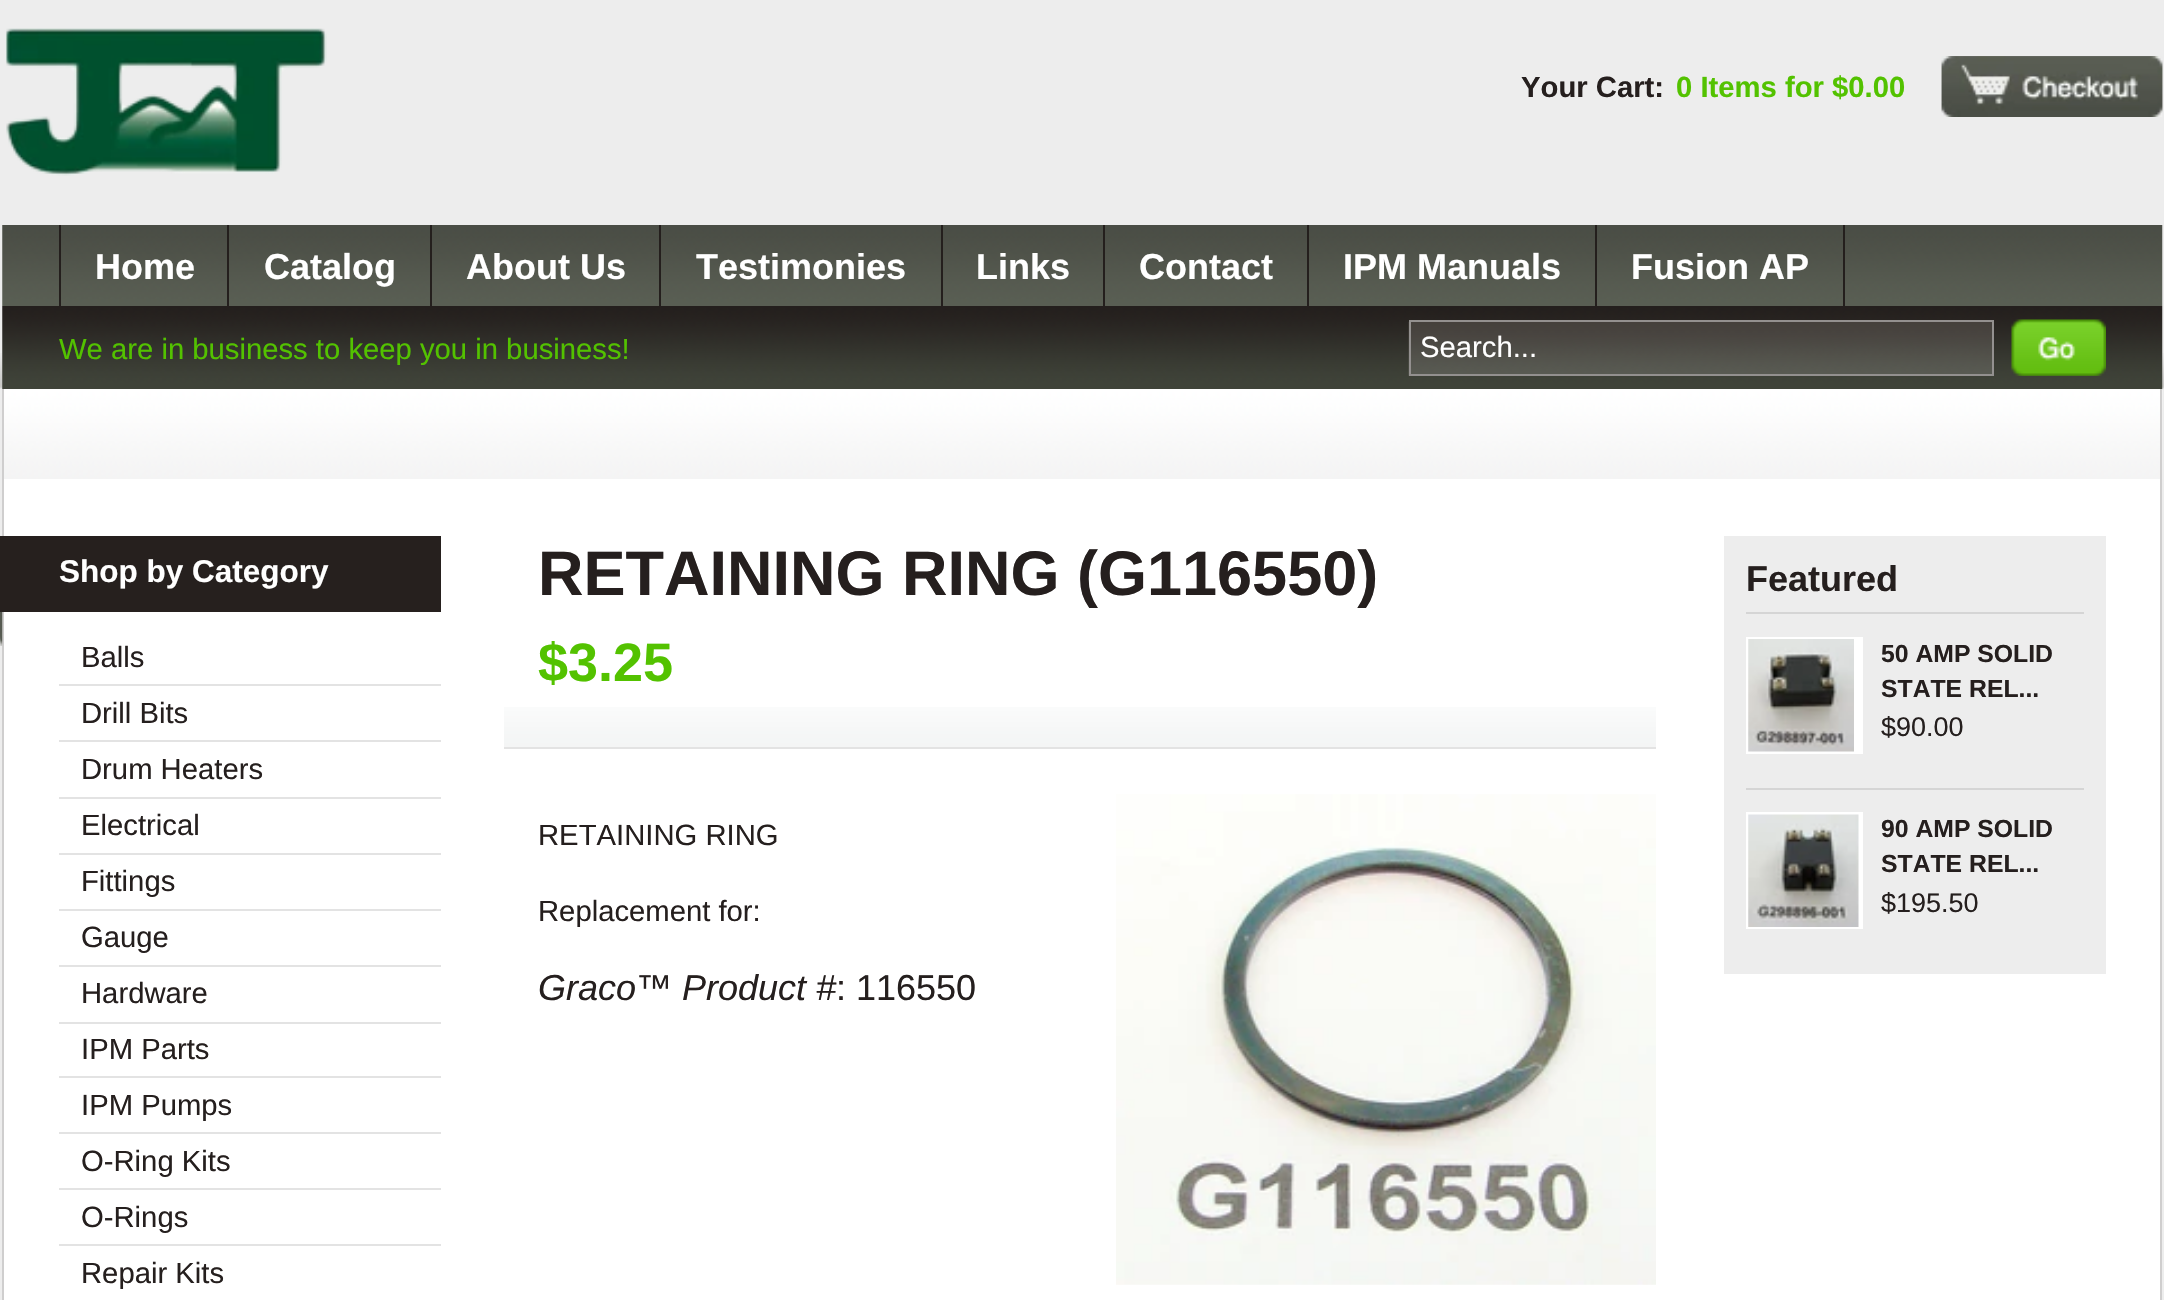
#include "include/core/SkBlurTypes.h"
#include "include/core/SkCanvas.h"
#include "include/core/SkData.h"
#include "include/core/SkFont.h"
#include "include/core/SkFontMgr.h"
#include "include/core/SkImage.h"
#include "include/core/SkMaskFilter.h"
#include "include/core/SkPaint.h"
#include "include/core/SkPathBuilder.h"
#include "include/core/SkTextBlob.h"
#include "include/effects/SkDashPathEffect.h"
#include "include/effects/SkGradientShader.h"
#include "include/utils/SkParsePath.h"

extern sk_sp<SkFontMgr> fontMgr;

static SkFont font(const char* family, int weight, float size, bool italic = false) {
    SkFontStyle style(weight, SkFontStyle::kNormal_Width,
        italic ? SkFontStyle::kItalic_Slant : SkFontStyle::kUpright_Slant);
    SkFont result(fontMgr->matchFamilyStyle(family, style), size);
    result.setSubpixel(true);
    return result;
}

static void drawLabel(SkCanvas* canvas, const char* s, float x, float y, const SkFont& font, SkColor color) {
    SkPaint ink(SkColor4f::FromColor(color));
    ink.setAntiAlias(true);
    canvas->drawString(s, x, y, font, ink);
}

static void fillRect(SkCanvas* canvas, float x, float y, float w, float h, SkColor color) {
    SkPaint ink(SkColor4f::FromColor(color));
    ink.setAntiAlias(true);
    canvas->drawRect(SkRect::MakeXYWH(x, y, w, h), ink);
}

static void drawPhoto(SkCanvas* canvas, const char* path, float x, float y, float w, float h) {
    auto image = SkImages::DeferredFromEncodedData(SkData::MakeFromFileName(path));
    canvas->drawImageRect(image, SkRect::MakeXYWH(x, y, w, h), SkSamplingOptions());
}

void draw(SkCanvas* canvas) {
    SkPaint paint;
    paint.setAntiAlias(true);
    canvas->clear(0xFFEDEDED);
    drawPhoto(canvas, "assets/img1.png", 0, 353, 2164, 36);
    drawPhoto(canvas, "assets/img2.png", 5, 28, 322, 148);
    SkFont font1 = font("Liberation Sans", 700, 29.25f);
    drawLabel(canvas, "Your Cart:", 1521, 97, font1, 0xFF251F1E);
    drawLabel(canvas, "0 Items for $0.00", 1676, 97, font1, 0xFF53C200);
    drawPhoto(canvas, "assets/img3.png", 1941, 56, 222, 61);
    drawPhoto(canvas, "assets/img4.png", 1941, 56, 222, 56);
    drawPhoto(canvas, "assets/img5.png", 2, 225, 2161, 81);
    fillRect(canvas, 59, 225, 2, 81, 0xFF241F1D);
    fillRect(canvas, 227, 225, 2, 81, 0xFF241F1D);
    SkFont font2 = font("Liberation Sans", 700, 36);
    drawLabel(canvas, "Home", 95, 279, font2, 0xFFFFFFFF);
    fillRect(canvas, 430, 225, 2, 81, 0xFF241F1D);
    drawLabel(canvas, "Catalog", 264, 279, font2, 0xFFFFFFFF);
    fillRect(canvas, 659, 225, 2, 81, 0xFF241F1D);
    drawLabel(canvas, "About Us", 466, 279, font2, 0xFFFFFFFF);
    fillRect(canvas, 941, 225, 2, 81, 0xFF241F1D);
    drawLabel(canvas, "Testimonies", 696, 279, font2, 0xFFFFFFFF);
    fillRect(canvas, 1103, 225, 2, 81, 0xFF241F1D);
    drawLabel(canvas, "Links", 976, 279, font2, 0xFFFFFFFF);
    fillRect(canvas, 1307, 225, 2, 81, 0xFF241F1D);
    drawLabel(canvas, "Contact", 1139, 279, font2, 0xFFFFFFFF);
    fillRect(canvas, 1595, 225, 2, 81, 0xFF241F1D);
    drawLabel(canvas, "IPM Manuals", 1343, 279, font2, 0xFFFFFFFF);
    fillRect(canvas, 1843, 225, 2, 81, 0xFF241F1D);
    drawLabel(canvas, "Fusion AP", 1631, 279, font2, 0xFFFFFFFF);
    drawPhoto(canvas, "assets/img6.png", 2, 306, 2161, 83);
    SkFont font3 = font("Liberation Sans", 400, 29.25f);
    drawLabel(canvas, "We are in business to keep you in business!", 59, 359, font3, 0xFF53C200);
    drawPhoto(canvas, "assets/img7.png", 1408, 321, 584, 55);
    paint.setStroke(true);
    paint.setStrokeWidth(2);
    paint.setColor(0xFF93908F);
    canvas->drawRect(SkRect::MakeXYWH(1410, 321, 583, 54), paint);
    drawLabel(canvas, "Search...", 1420, 357, font3, 0xFFFFFFFF);
    drawPhoto(canvas, "assets/img8.png", 2011, 319, 95, 57);
    fillRect(canvas, 4, 389, 2156, 911, 0xFFFFFFFF);
    drawPhoto(canvas, "assets/img9.png", 4, 390, 2159, 89);
    fillRect(canvas, 2160, 389, 2, 911, 0xFFCFCECE);
    fillRect(canvas, 2, 389, 2, 911, 0xFFCFCECE);
    fillRect(canvas, 0, 536, 441, 76, 0xFF26201E);
    SkFont font4 = font("Liberation Sans", 700, 31.5f);
    drawLabel(canvas, "Shop by Category", 59, 582, font4, 0xFFFFFFFF);
    drawPhoto(canvas, "assets/img10.png", 0, 612, 3, 34);
    fillRect(canvas, 59, 684, 382, 2, 0xFFE3E3E3);
    drawLabel(canvas, "Balls", 81, 667, font3, 0xFF251F1E);
    fillRect(canvas, 59, 740, 382, 2, 0xFFE3E3E3);
    drawLabel(canvas, "Drill Bits", 81, 723, font3, 0xFF251F1E);
    fillRect(canvas, 59, 797, 382, 2, 0xFFE3E3E3);
    drawLabel(canvas, "Drum Heaters", 81, 779, font3, 0xFF251F1E);
    fillRect(canvas, 59, 853, 382, 2, 0xFFE3E3E3);
    drawLabel(canvas, "Electrical", 81, 835, font3, 0xFF251F1E);
    fillRect(canvas, 59, 909, 382, 2, 0xFFE3E3E3);
    drawLabel(canvas, "Fittings", 81, 891, font3, 0xFF251F1E);
    fillRect(canvas, 59, 965, 382, 2, 0xFFE3E3E3);
    drawLabel(canvas, "Gauge", 81, 947, font3, 0xFF251F1E);
    fillRect(canvas, 59, 1022, 382, 2, 0xFFE3E3E3);
    drawLabel(canvas, "Hardware", 81, 1003, font3, 0xFF251F1E);
    fillRect(canvas, 59, 1076, 382, 2, 0xFFE3E3E3);
    drawLabel(canvas, "IPM Parts", 81, 1059, font3, 0xFF251F1E);
    fillRect(canvas, 59, 1132, 382, 2, 0xFFE3E3E3);
    drawLabel(canvas, "IPM Pumps", 81, 1115, font3, 0xFF251F1E);
    fillRect(canvas, 59, 1188, 382, 2, 0xFFE3E3E3);
    drawLabel(canvas, "O-Ring Kits", 81, 1171, font3, 0xFF251F1E);
    fillRect(canvas, 59, 1244, 382, 2, 0xFFE3E3E3);
    drawLabel(canvas, "O-Rings", 81, 1227, font3, 0xFF251F1E);
    drawLabel(canvas, "Repair Kits", 81, 1283, font3, 0xFF251F1E);
    drawPhoto(canvas, "assets/img11.png", 504, 707, 1152, 40);
    fillRect(canvas, 504, 747, 1152, 2, 0xFFE3E3E3);
    SkFont font5 = font("Liberation Sans", 700, 63);
    drawLabel(canvas, "RETAINING RING (G116550)", 538, 595, font5, 0xFF251F1E);
    SkFont font6 = font("Liberation Sans", 700, 54);
    drawLabel(canvas, "$3.25", 538, 681, font6, 0xFF53C200);
    drawLabel(canvas, "RETAINING RING", 538, 845, font3, 0xFF251F1E);
    drawLabel(canvas, "Replacement for:", 538, 921, font3, 0xFF251F1E);
    SkFont font7 = font("Liberation Sans", 400, 36, true);
    drawLabel(canvas, "Graco™ Product #", 538, 1000, font7, 0xFF251F1E);
    SkFont font8 = font("Liberation Sans", 400, 36);
    drawLabel(canvas, ": 116550", 836, 1000, font8, 0xFF251F1E);
    drawPhoto(canvas, "assets/img12.png", 1116, 794, 540, 491);
    fillRect(canvas, 1724, 536, 382, 438, 0xFFEDEDED);
    fillRect(canvas, 1746, 612, 338, 2, 0xFFD5D5D5);
    drawLabel(canvas, "Featured", 1746, 591, font2, 0xFF251F1E);
    fillRect(canvas, 1746, 788, 338, 2, 0xFFD5D5D5);
    fillRect(canvas, 1746, 637, 117, 117, 0xFFFFFFFF);
    drawPhoto(canvas, "assets/img13.png", 1748, 639, 106, 113);
    SkFont font9 = font("Liberation Sans", 700, 24.75f);
    drawLabel(canvas, "50 AMP SOLID", 1881, 662, font9, 0xFF251F1E);
    drawLabel(canvas, "STATE REL...", 1881, 697, font9, 0xFF251F1E);
    SkFont font10 = font("Liberation Sans", 400, 27);
    drawLabel(canvas, "$90.00", 1881, 736, font10, 0xFF251F1E);
    fillRect(canvas, 1746, 812, 117, 117, 0xFFFFFFFF);
    drawPhoto(canvas, "assets/img14.png", 1748, 814, 111, 113);
    drawLabel(canvas, "90 AMP SOLID", 1881, 837, font9, 0xFF251F1E);
    drawLabel(canvas, "STATE REL...", 1881, 872, font9, 0xFF251F1E);
    drawLabel(canvas, "$195.50", 1881, 912, font10, 0xFF251F1E);
}
